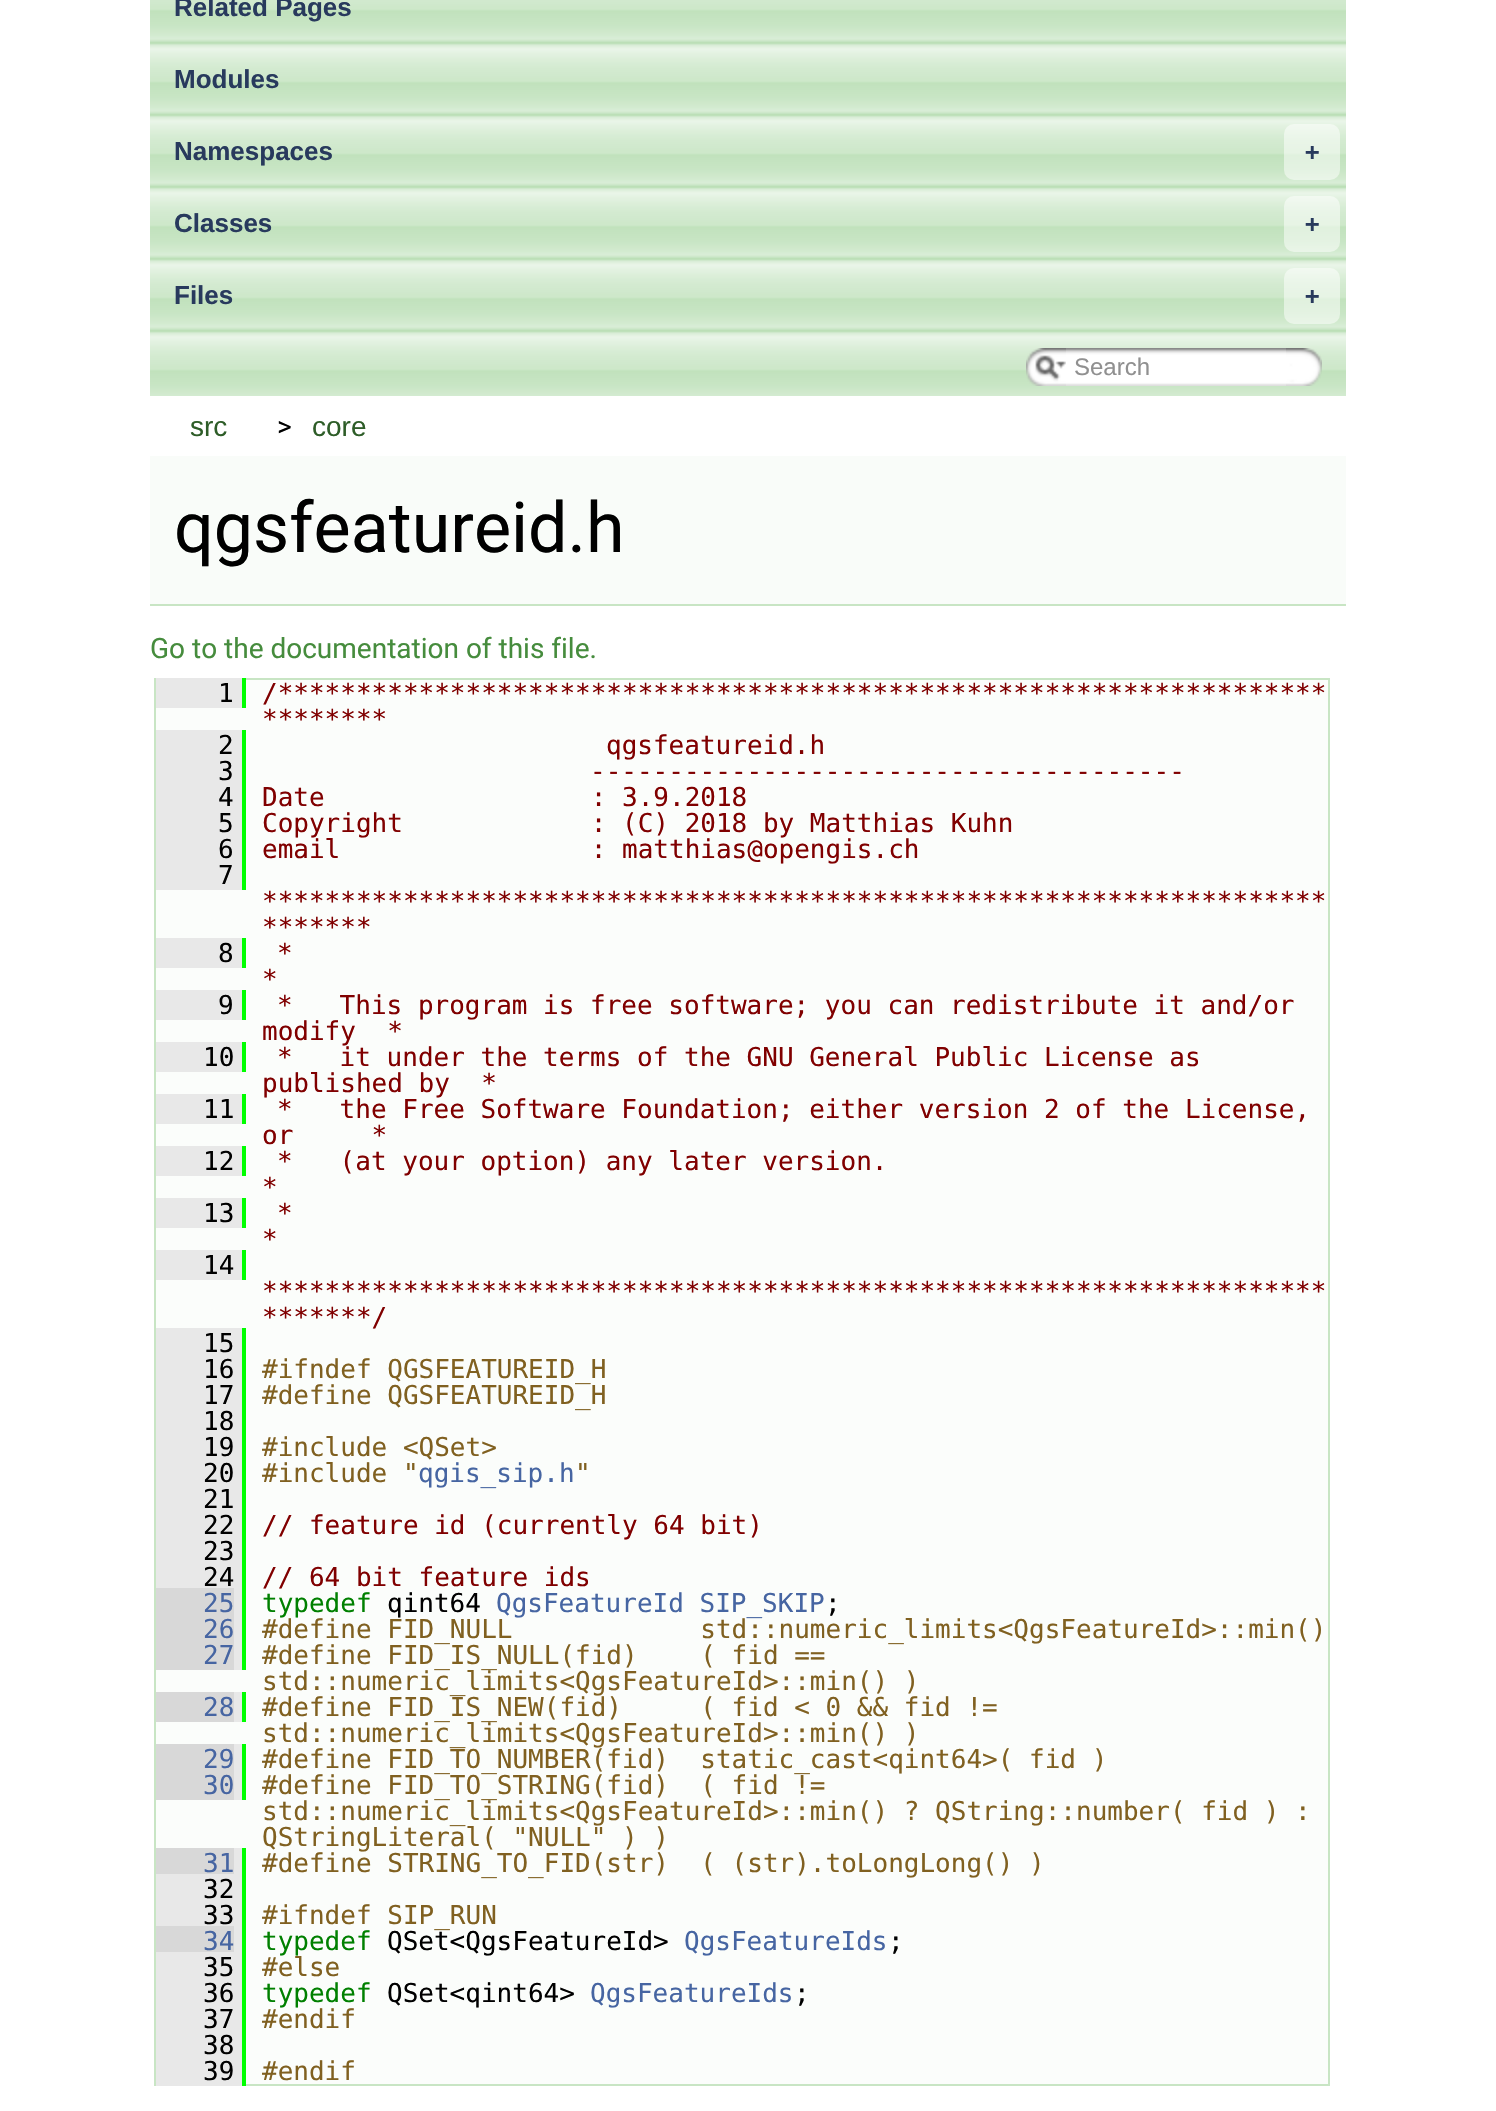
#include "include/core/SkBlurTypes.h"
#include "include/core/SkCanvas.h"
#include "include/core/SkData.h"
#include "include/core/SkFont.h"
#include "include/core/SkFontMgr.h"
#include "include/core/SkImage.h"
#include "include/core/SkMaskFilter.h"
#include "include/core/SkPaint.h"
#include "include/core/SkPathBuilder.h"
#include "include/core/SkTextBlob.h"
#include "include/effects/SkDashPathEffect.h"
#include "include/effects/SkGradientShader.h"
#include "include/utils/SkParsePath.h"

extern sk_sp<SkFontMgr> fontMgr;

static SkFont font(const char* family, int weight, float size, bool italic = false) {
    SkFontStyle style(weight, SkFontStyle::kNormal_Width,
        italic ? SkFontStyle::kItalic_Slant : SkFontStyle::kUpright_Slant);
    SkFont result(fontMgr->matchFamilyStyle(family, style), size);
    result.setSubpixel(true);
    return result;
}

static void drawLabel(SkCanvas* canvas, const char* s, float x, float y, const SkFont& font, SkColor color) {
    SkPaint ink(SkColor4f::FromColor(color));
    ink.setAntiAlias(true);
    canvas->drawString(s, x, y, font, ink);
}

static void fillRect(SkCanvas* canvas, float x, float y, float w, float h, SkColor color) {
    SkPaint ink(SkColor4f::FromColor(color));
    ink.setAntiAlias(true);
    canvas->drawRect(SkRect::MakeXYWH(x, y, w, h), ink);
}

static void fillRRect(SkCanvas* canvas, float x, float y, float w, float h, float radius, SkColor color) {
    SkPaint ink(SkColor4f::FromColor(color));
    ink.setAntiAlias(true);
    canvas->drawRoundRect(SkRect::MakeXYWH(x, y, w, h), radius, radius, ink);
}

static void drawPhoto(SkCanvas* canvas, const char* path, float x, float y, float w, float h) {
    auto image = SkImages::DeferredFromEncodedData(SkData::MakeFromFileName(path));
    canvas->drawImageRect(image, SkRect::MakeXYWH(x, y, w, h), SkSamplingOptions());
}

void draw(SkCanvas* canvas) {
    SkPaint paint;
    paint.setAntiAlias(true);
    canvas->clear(0xFFFFFFFF);
    drawPhoto(canvas, "assets/img1.png", 150, 0, 1196, 396);
    SkFont font1 = font("Liberation Sans", 700, 26);
    drawLabel(canvas, "Related Pages", 174, 16, font1, 0xFF283A5D);
    drawLabel(canvas, "Modules", 174, 88, font1, 0xFF283A5D);
    drawLabel(canvas, "Namespaces", 174, 160, font1, 0xFF283A5D);
    fillRRect(canvas, 1284, 124, 56, 56, 10, 0x80FFFFFF);
    SkFont font2 = font("DejaVu Sans Mono", 700, 24);
    drawLabel(canvas, "+", 1305, 160, font2, 0xFF283A5D);
    drawLabel(canvas, "Classes", 174, 232, font1, 0xFF283A5D);
    fillRRect(canvas, 1284, 196, 56, 56, 10, 0x80FFFFFF);
    drawLabel(canvas, "+", 1305, 232, font2, 0xFF283A5D);
    drawLabel(canvas, "Files", 174, 304, font1, 0xFF283A5D);
    fillRRect(canvas, 1284, 268, 56, 56, 10, 0x80FFFFFF);
    drawLabel(canvas, "+", 1305, 304, font2, 0xFF283A5D);
    drawPhoto(canvas, "assets/img2.png", 1026, 348, 40, 38);
    drawPhoto(canvas, "assets/img3.png", 1035, 355, 31, 26);
    drawPhoto(canvas, "assets/img4.png", 1066, 348, 220, 38);
    SkFont font3 = font("Liberation Sans", 400, 24);
    drawLabel(canvas, "Search", 1074, 375, font3, 0xFF909090);
    drawPhoto(canvas, "assets/img5.png", 1286, 348, 36, 38);
    SkFont font4 = font("Liberation Sans", 400, 28);
    drawLabel(canvas, "src", 190, 436, font4, 0xFF2E5D28);
    SkFont font5 = font("Roboto", 400, 28);
    drawLabel(canvas, ">", 277, 436, font5, 0xFF000000);
    drawLabel(canvas, "core", 312, 436, font4, 0xFF2E5D28);
    fillRect(canvas, 150, 456, 1196, 148, 0xFFF9FCF9);
    fillRect(canvas, 150, 604, 1196, 2, 0xFFC8E5C4);
    SkFont font6 = font("Roboto", 400, 70);
    drawLabel(canvas, "qgsfeatureid.h", 174, 552, font6, 0xFF000000);
    drawLabel(canvas, "Go to the documentation of this file.", 150, 658, font5, 0xFF468C3D);
    paint.setColor(0xFFFBFDFB);
    canvas->drawRect(SkRect::MakeXYWH(155, 679, 1174, 1406), paint);
    paint.setStroke(true);
    paint.setStrokeWidth(2);
    paint.setColor(0xFFC8E5C4);
    canvas->drawRect(SkRect::MakeXYWH(155, 679, 1174, 1406), paint);
    fillRect(canvas, 156, 678, 86, 30, 0xFFE8E8E8);
    SkFont font7 = font("DejaVu Sans Mono", 400, 26);
    drawLabel(canvas, "1", 218, 702, font7, 0xFF000000);
    fillRect(canvas, 242, 678, 4, 30, 0xFF00FF00);
    drawLabel(canvas, "/*******************************************************************", 262, 702, font7, 0xFF800000);
    drawLabel(canvas, "********", 262, 728, font7, 0xFF800000);
    fillRect(canvas, 156, 730, 86, 160, 0xFFE8E8E8);
    drawLabel(canvas, "2", 218, 754, font7, 0xFF000000);
    fillRect(canvas, 242, 730, 4, 160, 0xFF00FF00);
    drawLabel(canvas, "qgsfeatureid.h", 606, 754, font7, 0xFF800000);
    drawLabel(canvas, "3", 218, 780, font7, 0xFF000000);
    drawLabel(canvas, "--------------------------------------", 590, 780, font7, 0xFF800000);
    drawLabel(canvas, "4", 218, 806, font7, 0xFF000000);
    drawLabel(canvas, "Date                 : 3.9.2018", 262, 806, font7, 0xFF800000);
    drawLabel(canvas, "5", 218, 832, font7, 0xFF000000);
    drawLabel(canvas, "Copyright            : (C) 2018 by Matthias Kuhn", 262, 832, font7, 0xFF800000);
    drawLabel(canvas, "6", 218, 858, font7, 0xFF000000);
    drawLabel(canvas, "email                : matthias@opengis.ch", 262, 858, font7, 0xFF800000);
    drawLabel(canvas, "7", 218, 884, font7, 0xFF000000);
    drawLabel(canvas, "********************************************************************", 262, 910, font7, 0xFF800000);
    drawLabel(canvas, "*******", 262, 936, font7, 0xFF800000);
    fillRect(canvas, 156, 938, 86, 30, 0xFFE8E8E8);
    drawLabel(canvas, "8", 218, 962, font7, 0xFF000000);
    fillRect(canvas, 242, 938, 4, 30, 0xFF00FF00);
    drawLabel(canvas, "*", 277, 962, font7, 0xFF800000);
    drawLabel(canvas, "*", 262, 988, font7, 0xFF800000);
    fillRect(canvas, 156, 990, 86, 30, 0xFFE8E8E8);
    drawLabel(canvas, "9", 218, 1014, font7, 0xFF000000);
    fillRect(canvas, 242, 990, 4, 30, 0xFF00FF00);
    drawLabel(canvas, "*   This program is free software; you can redistribute it and/or", 277, 1014, font7, 0xFF800000);
    drawLabel(canvas, "modify  *", 262, 1040, font7, 0xFF800000);
    fillRect(canvas, 156, 1042, 86, 30, 0xFFE8E8E8);
    drawLabel(canvas, "10", 203, 1066, font7, 0xFF000000);
    fillRect(canvas, 242, 1042, 4, 30, 0xFF00FF00);
    drawLabel(canvas, "*   it under the terms of the GNU General Public License as", 277, 1066, font7, 0xFF800000);
    drawLabel(canvas, "published by  *", 262, 1092, font7, 0xFF800000);
    fillRect(canvas, 156, 1094, 86, 30, 0xFFE8E8E8);
    drawLabel(canvas, "11", 203, 1118, font7, 0xFF000000);
    fillRect(canvas, 242, 1094, 4, 30, 0xFF00FF00);
    drawLabel(canvas, "*   the Free Software Foundation; either version 2 of the License,", 277, 1118, font7, 0xFF800000);
    drawLabel(canvas, "or     *", 262, 1144, font7, 0xFF800000);
    fillRect(canvas, 156, 1146, 86, 30, 0xFFE8E8E8);
    drawLabel(canvas, "12", 203, 1170, font7, 0xFF000000);
    fillRect(canvas, 242, 1146, 4, 30, 0xFF00FF00);
    drawLabel(canvas, "*   (at your option) any later version.", 277, 1170, font7, 0xFF800000);
    drawLabel(canvas, "*", 262, 1196, font7, 0xFF800000);
    fillRect(canvas, 156, 1198, 86, 30, 0xFFE8E8E8);
    drawLabel(canvas, "13", 203, 1222, font7, 0xFF000000);
    fillRect(canvas, 242, 1198, 4, 30, 0xFF00FF00);
    drawLabel(canvas, "*", 277, 1222, font7, 0xFF800000);
    drawLabel(canvas, "*", 262, 1248, font7, 0xFF800000);
    fillRect(canvas, 156, 1250, 86, 30, 0xFFE8E8E8);
    drawLabel(canvas, "14", 203, 1274, font7, 0xFF000000);
    fillRect(canvas, 242, 1250, 4, 30, 0xFF00FF00);
    drawLabel(canvas, "********************************************************************", 262, 1300, font7, 0xFF800000);
    drawLabel(canvas, "*******/", 262, 1326, font7, 0xFF800000);
    fillRect(canvas, 156, 1328, 86, 260, 0xFFE8E8E8);
    drawLabel(canvas, "15", 203, 1352, font7, 0xFF000000);
    fillRect(canvas, 242, 1328, 4, 342, 0xFF00FF00);
    drawLabel(canvas, "16", 203, 1378, font7, 0xFF000000);
    drawLabel(canvas, "#ifndef QGSFEATUREID_H", 262, 1378, font7, 0xFF806020);
    drawLabel(canvas, "17", 203, 1404, font7, 0xFF000000);
    drawLabel(canvas, "#define QGSFEATUREID_H", 262, 1404, font7, 0xFF806020);
    drawLabel(canvas, "18", 203, 1430, font7, 0xFF000000);
    drawLabel(canvas, "19", 203, 1456, font7, 0xFF000000);
    drawLabel(canvas, "#include <QSet>", 262, 1456, font7, 0xFF806020);
    drawLabel(canvas, "20", 203, 1482, font7, 0xFF000000);
    drawLabel(canvas, "#include \"", 262, 1482, font7, 0xFF806020);
    drawLabel(canvas, "qgis_sip.h", 418, 1482, font7, 0xFF4665A2);
    drawLabel(canvas, "\"", 575, 1482, font7, 0xFF806020);
    drawLabel(canvas, "21", 203, 1508, font7, 0xFF000000);
    drawLabel(canvas, "22", 203, 1534, font7, 0xFF000000);
    drawLabel(canvas, "// feature id (currently 64 bit)", 262, 1534, font7, 0xFF800000);
    drawLabel(canvas, "23", 203, 1560, font7, 0xFF000000);
    drawLabel(canvas, "24", 203, 1586, font7, 0xFF000000);
    drawLabel(canvas, "// 64 bit feature ids", 262, 1586, font7, 0xFF800000);
    fillRect(canvas, 156, 1588, 78, 82, 0xFFD8D8D8);
    drawLabel(canvas, "25", 203, 1612, font7, 0xFF4665A2);
    fillRect(canvas, 234, 1588, 8, 82, 0xFFE8E8E8);
    drawLabel(canvas, "typedef", 262, 1612, font7, 0xFF008000);
    drawLabel(canvas, "qint64", 387, 1612, font7, 0xFF000000);
    drawLabel(canvas, "QgsFeatureId SIP_SKIP", 496, 1612, font7, 0xFF4665A2);
    drawLabel(canvas, ";", 825, 1612, font7, 0xFF000000);
    drawLabel(canvas, "26", 203, 1638, font7, 0xFF4665A2);
    drawLabel(canvas, "#define FID_NULL            std::numeric_limits<QgsFeatureId>::min()", 262, 1638, font7, 0xFF806020);
    drawLabel(canvas, "27", 203, 1664, font7, 0xFF4665A2);
    drawLabel(canvas, "#define FID_IS_NULL(fid)    ( fid ==", 262, 1664, font7, 0xFF806020);
    drawLabel(canvas, "std::numeric_limits<QgsFeatureId>::min() )", 262, 1690, font7, 0xFF806020);
    fillRect(canvas, 156, 1692, 78, 30, 0xFFD8D8D8);
    drawLabel(canvas, "28", 203, 1716, font7, 0xFF4665A2);
    fillRect(canvas, 234, 1692, 8, 30, 0xFFE8E8E8);
    fillRect(canvas, 242, 1692, 4, 30, 0xFF00FF00);
    drawLabel(canvas, "#define FID_IS_NEW(fid)     ( fid < 0 && fid !=", 262, 1716, font7, 0xFF806020);
    drawLabel(canvas, "std::numeric_limits<QgsFeatureId>::min() )", 262, 1742, font7, 0xFF806020);
    fillRect(canvas, 156, 1744, 78, 56, 0xFFD8D8D8);
    drawLabel(canvas, "29", 203, 1768, font7, 0xFF4665A2);
    fillRect(canvas, 234, 1744, 8, 56, 0xFFE8E8E8);
    fillRect(canvas, 242, 1744, 4, 56, 0xFF00FF00);
    drawLabel(canvas, "#define FID_TO_NUMBER(fid)  static_cast<qint64>( fid )", 262, 1768, font7, 0xFF806020);
    drawLabel(canvas, "30", 203, 1794, font7, 0xFF4665A2);
    drawLabel(canvas, "#define FID_TO_STRING(fid)  ( fid !=", 262, 1794, font7, 0xFF806020);
    drawLabel(canvas, "std::numeric_limits<QgsFeatureId>::min() ? QString::number( fid ) :", 262, 1820, font7, 0xFF806020);
    drawLabel(canvas, "QStringLiteral( \"NULL\" ) )", 262, 1846, font7, 0xFF806020);
    fillRect(canvas, 156, 1848, 78, 26, 0xFFD8D8D8);
    drawLabel(canvas, "31", 203, 1872, font7, 0xFF4665A2);
    fillRect(canvas, 234, 1848, 8, 26, 0xFFE8E8E8);
    fillRect(canvas, 242, 1848, 4, 238, 0xFF00FF00);
    drawLabel(canvas, "#define STRING_TO_FID(str)  ( (str).toLongLong() )", 262, 1872, font7, 0xFF806020);
    fillRect(canvas, 156, 1874, 86, 52, 0xFFE8E8E8);
    drawLabel(canvas, "32", 203, 1898, font7, 0xFF000000);
    drawLabel(canvas, "33", 203, 1924, font7, 0xFF000000);
    drawLabel(canvas, "#ifndef SIP_RUN", 262, 1924, font7, 0xFF806020);
    fillRect(canvas, 156, 1926, 78, 26, 0xFFD8D8D8);
    drawLabel(canvas, "34", 203, 1950, font7, 0xFF4665A2);
    fillRect(canvas, 234, 1926, 8, 26, 0xFFE8E8E8);
    drawLabel(canvas, "typedef", 262, 1950, font7, 0xFF008000);
    drawLabel(canvas, "QSet<QgsFeatureId>", 387, 1950, font7, 0xFF000000);
    drawLabel(canvas, "QgsFeatureIds", 684, 1950, font7, 0xFF4665A2);
    drawLabel(canvas, ";", 888, 1950, font7, 0xFF000000);
    fillRect(canvas, 156, 1952, 86, 134, 0xFFE8E8E8);
    drawLabel(canvas, "35", 203, 1976, font7, 0xFF000000);
    drawLabel(canvas, "#else", 262, 1976, font7, 0xFF806020);
    drawLabel(canvas, "36", 203, 2002, font7, 0xFF000000);
    drawLabel(canvas, "typedef", 262, 2002, font7, 0xFF008000);
    drawLabel(canvas, "QSet<qint64>", 387, 2002, font7, 0xFF000000);
    drawLabel(canvas, "QgsFeatureIds", 590, 2002, font7, 0xFF4665A2);
    drawLabel(canvas, ";", 794, 2002, font7, 0xFF000000);
    drawLabel(canvas, "37", 203, 2028, font7, 0xFF000000);
    drawLabel(canvas, "#endif", 262, 2028, font7, 0xFF806020);
    drawLabel(canvas, "38", 203, 2054, font7, 0xFF000000);
    drawLabel(canvas, "39", 203, 2080, font7, 0xFF000000);
    drawLabel(canvas, "#endif", 262, 2080, font7, 0xFF806020);
}
